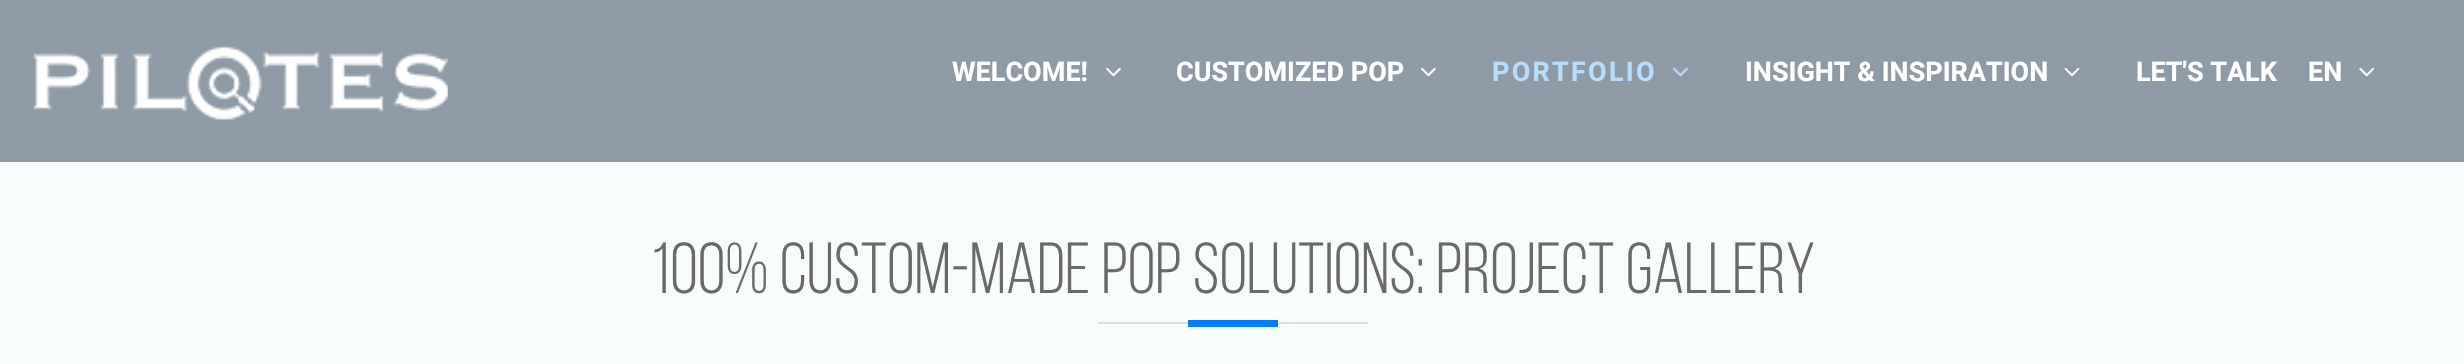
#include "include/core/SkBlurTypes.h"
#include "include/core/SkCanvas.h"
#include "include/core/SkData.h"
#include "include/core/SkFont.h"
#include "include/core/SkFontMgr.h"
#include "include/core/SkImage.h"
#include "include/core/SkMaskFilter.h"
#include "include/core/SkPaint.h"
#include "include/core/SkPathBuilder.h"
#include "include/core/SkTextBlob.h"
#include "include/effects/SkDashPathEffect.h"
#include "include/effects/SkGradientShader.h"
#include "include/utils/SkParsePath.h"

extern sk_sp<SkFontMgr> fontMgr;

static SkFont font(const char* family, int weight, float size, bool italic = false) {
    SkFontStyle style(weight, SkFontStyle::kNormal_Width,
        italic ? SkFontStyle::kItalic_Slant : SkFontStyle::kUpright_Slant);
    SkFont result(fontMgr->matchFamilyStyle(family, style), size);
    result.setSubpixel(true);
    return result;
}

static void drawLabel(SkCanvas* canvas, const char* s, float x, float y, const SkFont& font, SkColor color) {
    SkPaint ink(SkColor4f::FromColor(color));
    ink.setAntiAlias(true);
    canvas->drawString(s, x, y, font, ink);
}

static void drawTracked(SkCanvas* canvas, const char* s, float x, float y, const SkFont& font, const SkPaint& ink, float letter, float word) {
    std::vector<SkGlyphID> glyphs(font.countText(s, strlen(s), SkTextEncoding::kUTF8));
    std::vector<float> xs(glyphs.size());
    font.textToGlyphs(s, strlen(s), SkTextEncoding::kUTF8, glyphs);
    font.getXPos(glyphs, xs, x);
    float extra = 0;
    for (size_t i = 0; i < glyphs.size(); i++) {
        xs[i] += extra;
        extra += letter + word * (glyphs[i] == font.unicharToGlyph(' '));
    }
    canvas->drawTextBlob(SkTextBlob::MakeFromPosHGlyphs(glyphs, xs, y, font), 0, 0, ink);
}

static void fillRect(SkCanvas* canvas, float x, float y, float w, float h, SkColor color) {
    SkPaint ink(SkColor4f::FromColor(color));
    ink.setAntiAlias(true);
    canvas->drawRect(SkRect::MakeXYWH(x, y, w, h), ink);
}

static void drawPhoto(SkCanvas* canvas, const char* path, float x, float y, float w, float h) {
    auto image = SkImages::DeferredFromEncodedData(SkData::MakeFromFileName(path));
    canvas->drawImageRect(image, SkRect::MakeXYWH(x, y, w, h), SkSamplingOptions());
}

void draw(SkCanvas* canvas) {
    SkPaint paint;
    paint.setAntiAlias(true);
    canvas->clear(0xFFF9FCFD);
    fillRect(canvas, 0, 0, 2464, 162, 0xFF8E9AA5);
    drawPhoto(canvas, "assets/img1.png", 33, 46, 415, 74);
    SkFont font1 = font("Roboto", 700, 27);
    drawLabel(canvas, "WELCOME!", 952, 81, font1, 0xFFFFFFFF);
    drawPhoto(canvas, "assets/img2.png", 1106, 67, 15, 10);
    drawLabel(canvas, "CUSTOMIZED POP", 1176, 81, font1, 0xFFFFFFFF);
    drawPhoto(canvas, "assets/img2.png", 1421, 67, 15, 10);
    paint.setColor(0xFFB8DDFF);
    drawTracked(canvas, "PORTFOLIO", 1492, 81, font1, paint, 2.25f, 0);
    drawPhoto(canvas, "assets/img3.png", 1673, 67, 15, 10);
    drawLabel(canvas, "INSIGHT & INSPIRATION", 1745, 81, font1, 0xFFFFFFFF);
    drawPhoto(canvas, "assets/img4.png", 2064, 67, 16, 10);
    drawLabel(canvas, "LET'S TALK", 2136, 81, font1, 0xFFFFFFFF);
    drawLabel(canvas, "EN", 2308, 81, font1, 0xFFFFFFFF);
    drawPhoto(canvas, "assets/img5.png", 2359, 67, 16, 10);
    SkFont font2 = font("Bebas Neue", 400, 72);
    drawLabel(canvas, "100% CUSTOM-MADE POP SOLUTIONS: PROJECT GALLERY", 650, 293, font2, 0xFF696969);
    fillRect(canvas, 1098, 322, 270, 2, 0xFFDDDDDD);
    fillRect(canvas, 1188, 320, 90, 7, 0xFF007DFF);
}
